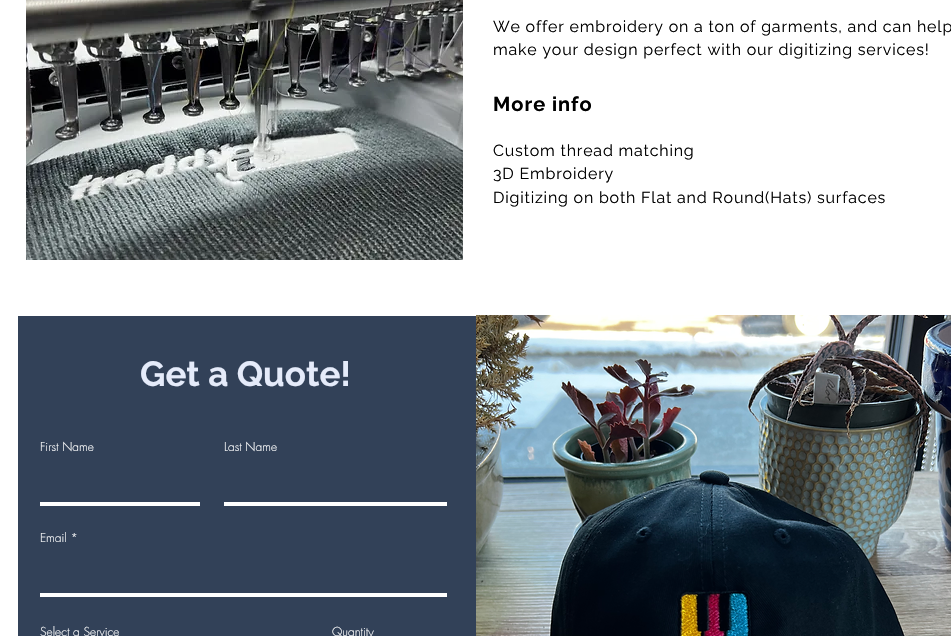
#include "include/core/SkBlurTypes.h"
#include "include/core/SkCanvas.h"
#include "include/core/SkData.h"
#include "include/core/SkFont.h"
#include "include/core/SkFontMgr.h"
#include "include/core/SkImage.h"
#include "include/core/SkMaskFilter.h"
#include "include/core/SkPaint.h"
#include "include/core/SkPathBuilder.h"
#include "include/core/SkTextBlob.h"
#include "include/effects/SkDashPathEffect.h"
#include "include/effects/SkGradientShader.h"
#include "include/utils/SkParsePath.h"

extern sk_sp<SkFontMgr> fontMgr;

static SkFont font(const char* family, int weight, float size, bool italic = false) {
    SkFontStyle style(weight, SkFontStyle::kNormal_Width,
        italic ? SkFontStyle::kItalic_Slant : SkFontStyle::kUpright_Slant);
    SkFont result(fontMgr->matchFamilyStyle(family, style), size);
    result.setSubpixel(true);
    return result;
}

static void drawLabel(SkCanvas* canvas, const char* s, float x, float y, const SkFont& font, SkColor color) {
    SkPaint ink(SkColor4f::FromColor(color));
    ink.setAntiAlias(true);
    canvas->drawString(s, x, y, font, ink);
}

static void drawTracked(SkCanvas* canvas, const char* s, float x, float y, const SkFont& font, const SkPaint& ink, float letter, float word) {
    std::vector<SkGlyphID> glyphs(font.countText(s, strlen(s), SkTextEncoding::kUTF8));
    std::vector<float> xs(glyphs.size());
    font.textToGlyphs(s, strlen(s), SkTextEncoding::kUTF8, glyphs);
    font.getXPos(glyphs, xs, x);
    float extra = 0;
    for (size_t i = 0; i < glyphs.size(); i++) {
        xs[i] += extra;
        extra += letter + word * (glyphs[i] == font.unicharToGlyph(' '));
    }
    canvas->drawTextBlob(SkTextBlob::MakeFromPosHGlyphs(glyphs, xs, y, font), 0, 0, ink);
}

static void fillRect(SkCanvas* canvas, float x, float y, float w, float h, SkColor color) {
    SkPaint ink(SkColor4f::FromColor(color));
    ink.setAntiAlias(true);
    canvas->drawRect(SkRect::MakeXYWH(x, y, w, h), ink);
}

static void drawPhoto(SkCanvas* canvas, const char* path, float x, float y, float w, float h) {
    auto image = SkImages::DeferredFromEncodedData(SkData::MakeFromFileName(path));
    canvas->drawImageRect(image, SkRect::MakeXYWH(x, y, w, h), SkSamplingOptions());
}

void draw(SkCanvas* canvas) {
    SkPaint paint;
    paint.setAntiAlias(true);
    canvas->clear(0xFFFFFFFF);
    drawPhoto(canvas, "assets/img1.png", 26, 0, 437, 260);
    SkFont font1 = font("Raleway", 400, 16);
    paint.setColor(0xFF000000);
    drawTracked(canvas, "We offer embroidery on a ton of garments, and can help", 493, 32, font1, paint, 0.8f, 0);
    drawTracked(canvas, "make your design perfect with our digitizing services!", 493, 55, font1, paint, 0.8f, 0);
    SkFont font2 = font("Raleway", 700, 20);
    drawTracked(canvas, "More info", 493, 111, font2, paint, 1, 0);
    drawTracked(canvas, "Custom thread matching", 493, 156, font1, paint, 0.8f, 0);
    drawTracked(canvas, "3D Embroidery", 493, 179, font1, paint, 0.8f, 0);
    drawTracked(canvas, "Digitizing on both Flat and Round(Hats) surfaces", 493, 203, font1, paint, 0.8f, 0);
    fillRect(canvas, 18, 316, 458, 320, 0xFF324158);
    SkFont font3 = font("Raleway", 700, 35);
    drawLabel(canvas, "Get a Quote!", 140, 386, font3, 0xFFE5EBFA);
    SkFont font4 = font("futura", 300, 12);
    drawLabel(canvas, "First Name", 40, 451, font4, 0xFFFFFFFF);
    fillRect(canvas, 40, 502, 160, 4, 0xFFFFFFFF);
    drawLabel(canvas, "Last Name", 224, 451, font4, 0xFFFFFFFF);
    fillRect(canvas, 224, 502, 223, 4, 0xFFFFFFFF);
    drawLabel(canvas, "Email *", 40, 542, font4, 0xFFFFFFFF);
    fillRect(canvas, 40, 593, 407, 4, 0xFFFFFFFF);
    drawLabel(canvas, "Select a Service", 40, 636, font4, 0xFFFFFFFF);
    drawLabel(canvas, "Quantity", 332, 636, font4, 0xFFFFFFFF);
    drawPhoto(canvas, "assets/img2.png", 476, 315, 475, 321);
}
